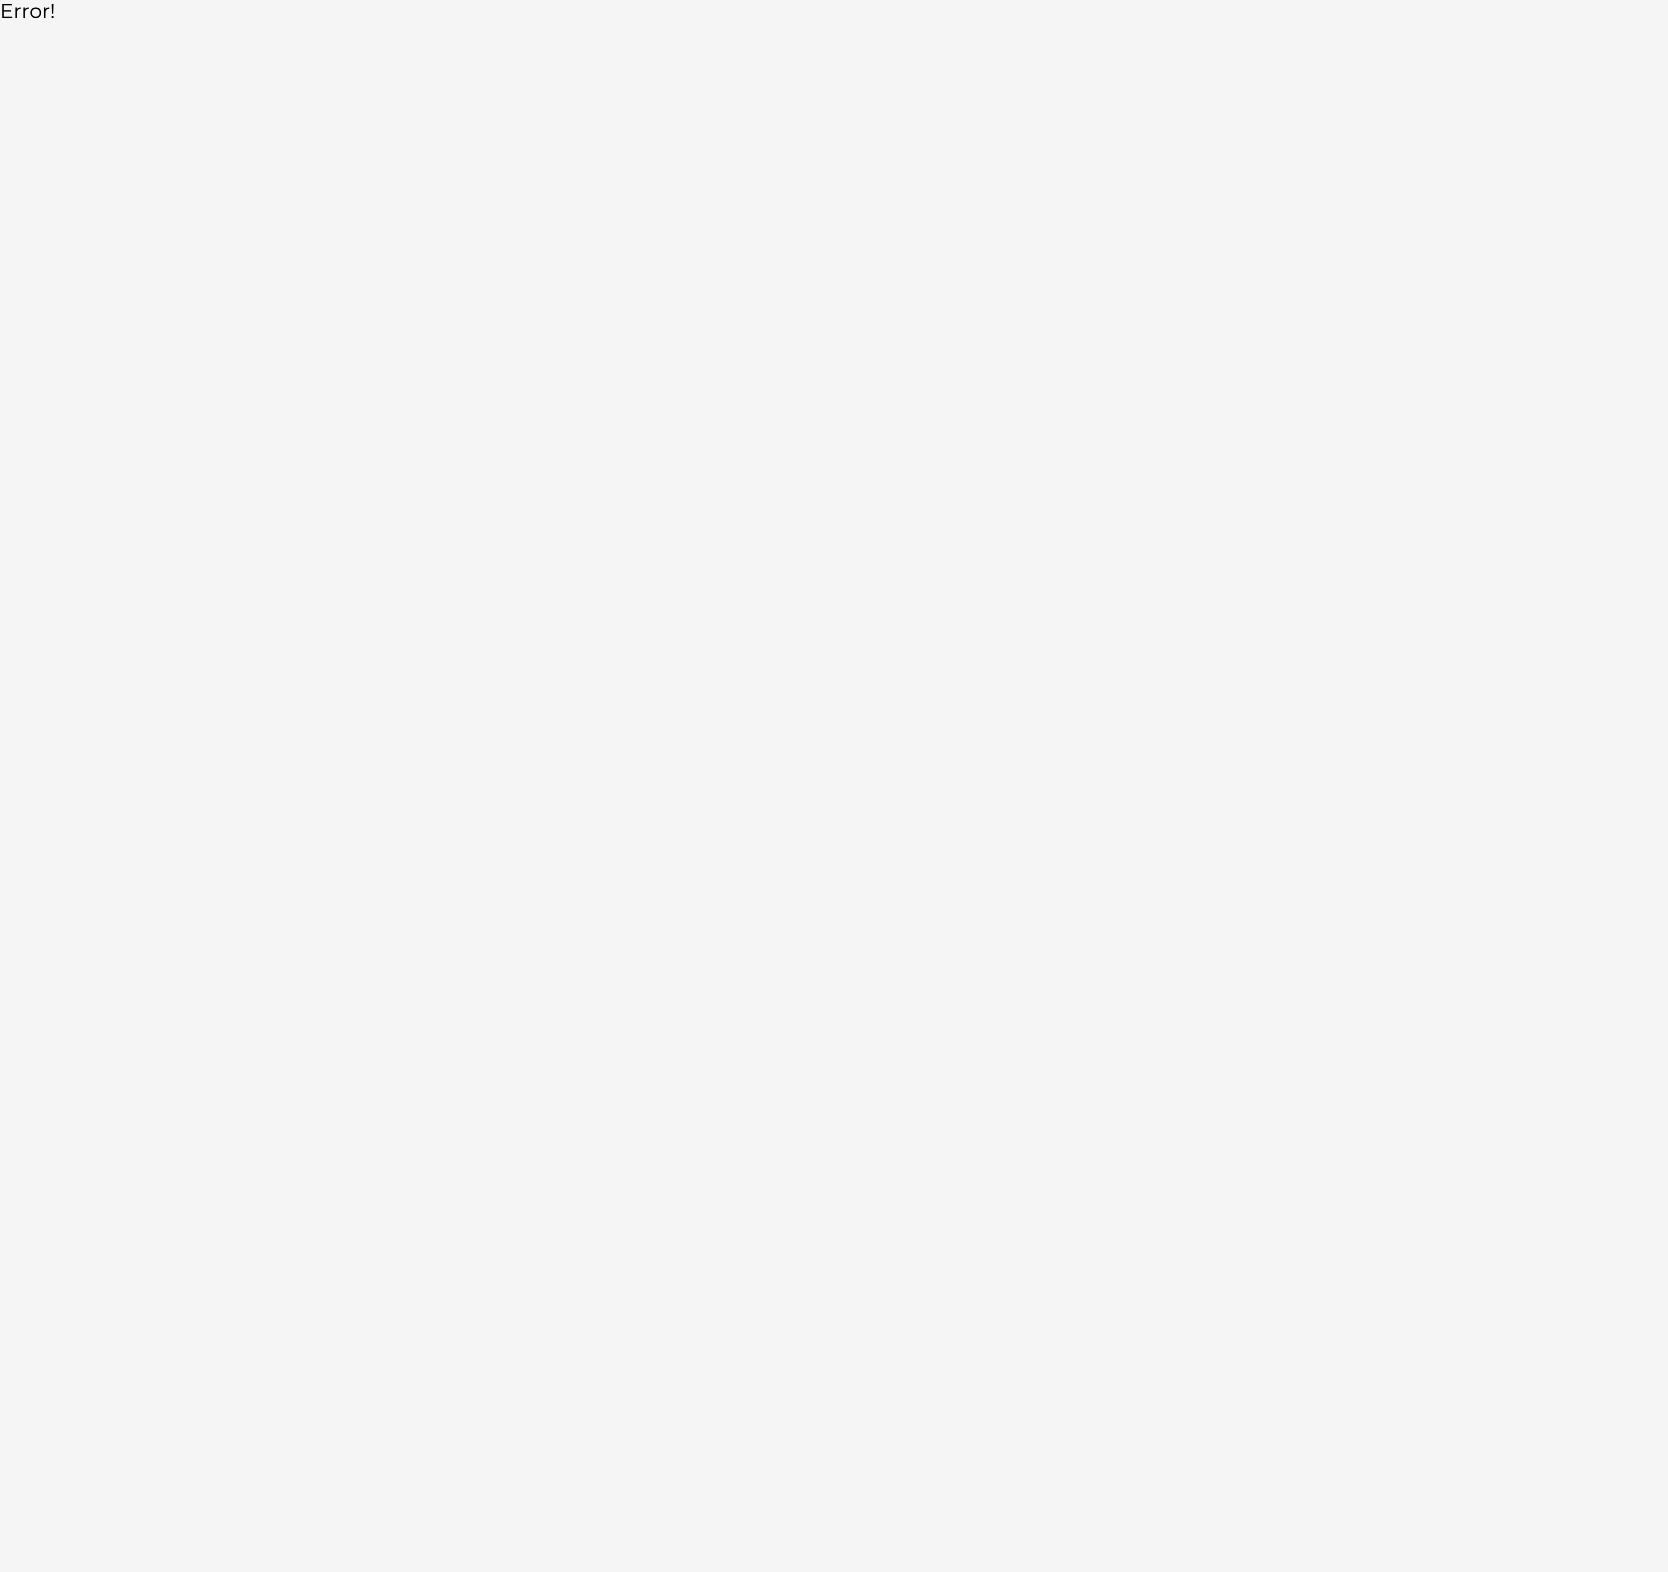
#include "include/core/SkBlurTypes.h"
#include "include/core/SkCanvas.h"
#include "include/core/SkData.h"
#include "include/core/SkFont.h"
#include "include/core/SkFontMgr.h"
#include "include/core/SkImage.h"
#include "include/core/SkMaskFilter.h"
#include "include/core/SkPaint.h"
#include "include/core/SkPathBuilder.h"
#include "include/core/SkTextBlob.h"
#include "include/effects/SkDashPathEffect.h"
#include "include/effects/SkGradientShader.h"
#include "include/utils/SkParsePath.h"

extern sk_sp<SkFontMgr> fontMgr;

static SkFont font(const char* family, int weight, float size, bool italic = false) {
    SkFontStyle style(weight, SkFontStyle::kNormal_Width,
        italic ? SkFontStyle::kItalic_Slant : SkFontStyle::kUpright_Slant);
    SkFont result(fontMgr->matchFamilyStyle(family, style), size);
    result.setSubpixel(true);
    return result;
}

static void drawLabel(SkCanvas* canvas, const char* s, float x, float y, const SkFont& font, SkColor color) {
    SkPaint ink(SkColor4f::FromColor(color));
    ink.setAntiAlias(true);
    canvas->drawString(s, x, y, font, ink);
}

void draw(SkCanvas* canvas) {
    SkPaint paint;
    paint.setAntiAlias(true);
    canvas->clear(0xFFF5F5F5);
    SkFont font1 = font("Montserrat", 400, 20);
    drawLabel(canvas, "Error!", 0, 18, font1, 0xFF000000);
}
